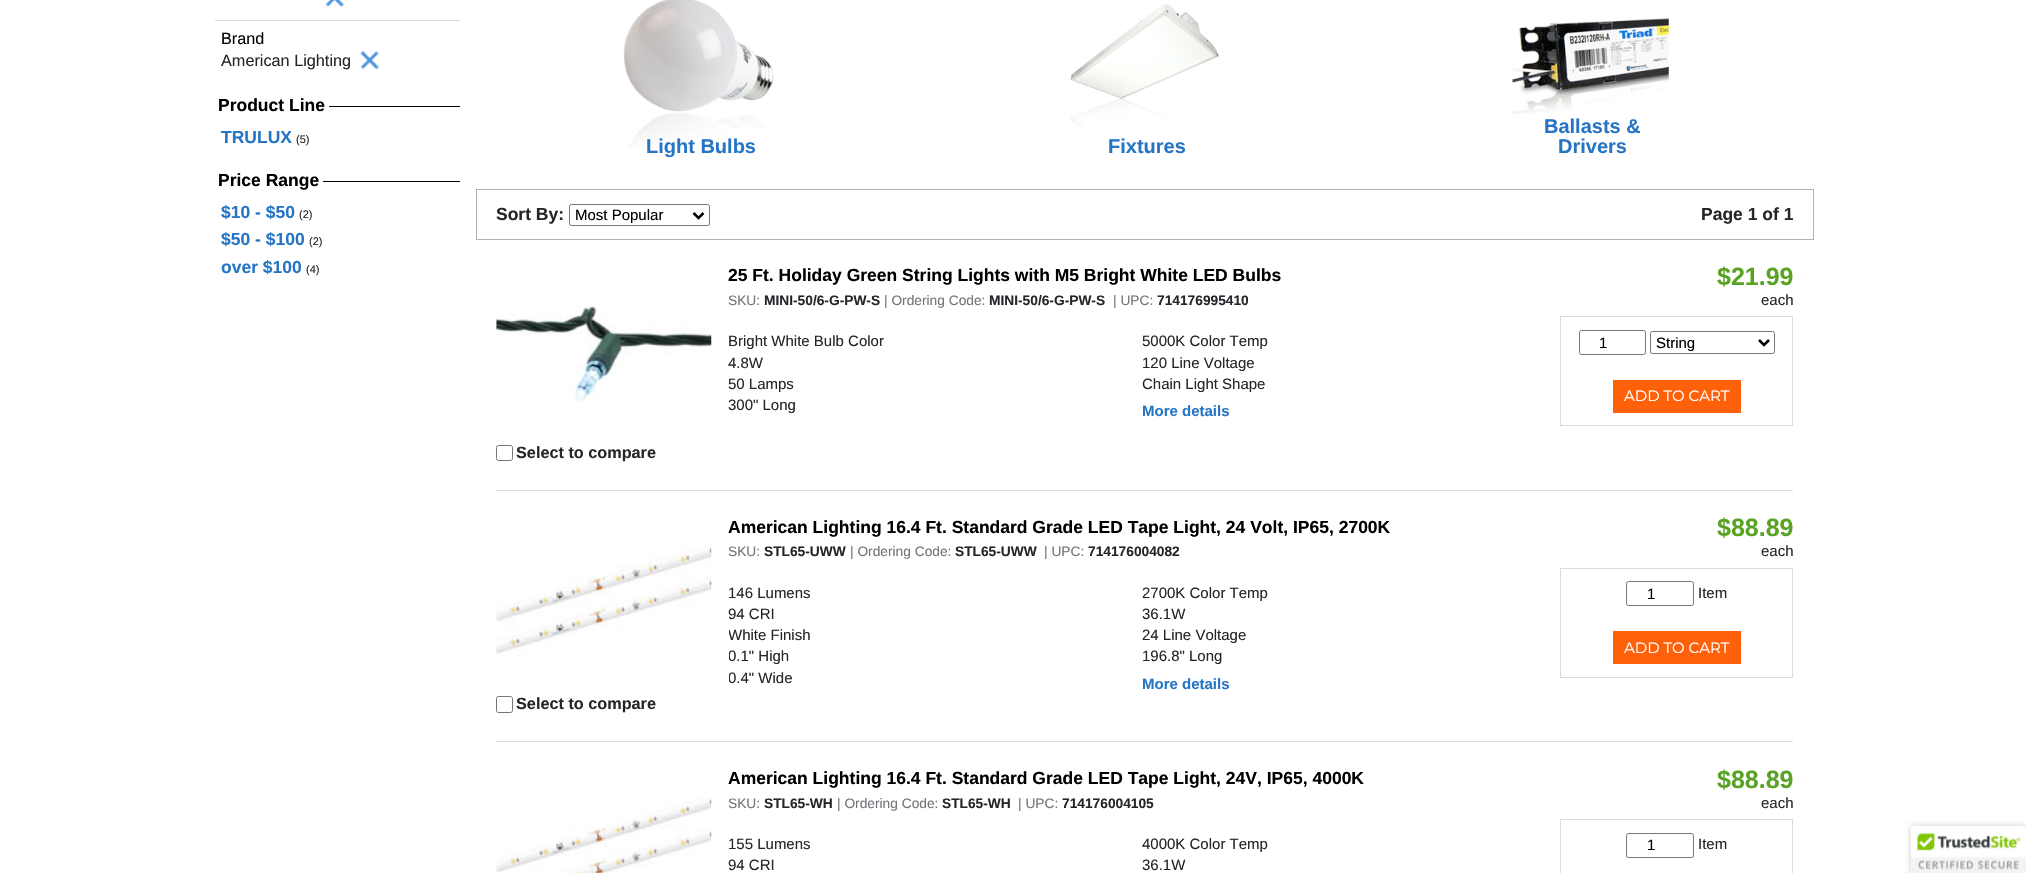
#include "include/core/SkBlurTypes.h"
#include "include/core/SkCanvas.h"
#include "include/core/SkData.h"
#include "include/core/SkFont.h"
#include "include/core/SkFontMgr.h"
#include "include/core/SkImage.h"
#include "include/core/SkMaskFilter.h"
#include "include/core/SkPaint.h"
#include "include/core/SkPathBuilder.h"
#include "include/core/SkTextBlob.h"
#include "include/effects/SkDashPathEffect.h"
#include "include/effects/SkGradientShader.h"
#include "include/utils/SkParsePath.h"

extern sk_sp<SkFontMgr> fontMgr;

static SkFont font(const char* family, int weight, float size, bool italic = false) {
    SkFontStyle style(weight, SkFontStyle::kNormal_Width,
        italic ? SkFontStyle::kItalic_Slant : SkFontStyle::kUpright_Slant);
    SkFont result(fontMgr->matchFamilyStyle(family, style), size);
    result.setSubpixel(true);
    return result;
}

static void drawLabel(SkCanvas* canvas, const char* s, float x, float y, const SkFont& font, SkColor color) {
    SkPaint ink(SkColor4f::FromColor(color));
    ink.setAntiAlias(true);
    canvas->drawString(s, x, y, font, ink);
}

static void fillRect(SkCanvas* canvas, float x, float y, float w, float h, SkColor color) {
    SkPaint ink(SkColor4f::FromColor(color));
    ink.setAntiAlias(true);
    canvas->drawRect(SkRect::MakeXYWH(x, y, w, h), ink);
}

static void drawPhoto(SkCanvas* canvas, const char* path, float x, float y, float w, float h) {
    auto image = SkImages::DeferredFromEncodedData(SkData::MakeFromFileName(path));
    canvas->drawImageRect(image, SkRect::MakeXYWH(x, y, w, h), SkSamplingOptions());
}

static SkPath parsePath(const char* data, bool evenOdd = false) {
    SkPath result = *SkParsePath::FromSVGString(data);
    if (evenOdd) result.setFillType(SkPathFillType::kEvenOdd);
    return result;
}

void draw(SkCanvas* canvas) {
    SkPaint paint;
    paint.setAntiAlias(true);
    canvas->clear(0xFFFFFFFF);
    drawPhoto(canvas, "assets/img1.png", 325, 0, 19, 8);
    fillRect(canvas, 215, 20, 245, 1, 0xFFDBDBDB);
    SkFont font1 = font("Liberation Sans", 400, 16.25f);
    drawLabel(canvas, "Brand", 221, 44, font1, 0xFF000000);
    drawLabel(canvas, "American Lighting", 221, 66, font1, 0xFF25262A);
    drawPhoto(canvas, "assets/img2.png", 360, 51, 19, 19);
    fillRect(canvas, 329, 106, 131, 1, 0xFF000000);
    SkFont font2 = font("Liberation Sans", 700, 17.5f);
    drawLabel(canvas, "Product Line", 218, 111, font2, 0xFF000000);
    drawLabel(canvas, "TRULUX", 221, 143, font2, 0xFF2675C5);
    SkFont font3 = font("Liberation Sans", 400, 11);
    drawLabel(canvas, "(5)", 296, 143, font3, 0xFF25262A);
    fillRect(canvas, 323, 181, 137, 1, 0xFF000000);
    drawLabel(canvas, "Price Range", 218, 186, font2, 0xFF000000);
    drawLabel(canvas, "$10 - $50", 221, 218, font2, 0xFF2675C5);
    drawLabel(canvas, "(2)", 299, 218, font3, 0xFF25262A);
    drawLabel(canvas, "$50 - $100", 221, 245, font2, 0xFF2675C5);
    drawLabel(canvas, "(2)", 309, 245, font3, 0xFF25262A);
    drawLabel(canvas, "over $100", 221, 273, font2, 0xFF2675C5);
    drawLabel(canvas, "(4)", 306, 273, font3, 0xFF25262A);
    fillRect(canvas, 476, 189, 1338, 1, 0xFFB2B2B2);
    drawPhoto(canvas, "assets/img3.png", 623, 0, 151, 148);
    SkFont font4 = font("Liberation Sans", 700, 20);
    drawLabel(canvas, "Light Bulbs", 646, 153, font4, 0xFF2675C5);
    drawPhoto(canvas, "assets/img4.png", 1070, 4, 149, 124);
    drawLabel(canvas, "Fixtures", 1108, 153, font4, 0xFF2675C5);
    drawPhoto(canvas, "assets/img5.png", 1512, 18, 157, 97);
    drawLabel(canvas, "Ballasts &", 1544, 133, font4, 0xFF2675C5);
    drawLabel(canvas, "Drivers", 1558, 153, font4, 0xFF2675C5);
    fillRect(canvas, 1813, 190, 1, 50, 0xFFB2B2B2);
    fillRect(canvas, 476, 239, 1338, 1, 0xFFB2B2B2);
    fillRect(canvas, 476, 190, 1, 50, 0xFFB2B2B2);
    drawLabel(canvas, "Sort By:", 496, 220, font2, 0xFF25262A);
    paint.setStroke(true);
    paint.setStrokeWidth(1);
    paint.setColor(0xFF767676);
    canvas->drawRoundRect(SkRect::MakeXYWH(569.5f, 204.5f, 140, 21), 2, 2, paint);
    paint.setStrokeWidth(2.5f);
    paint.setColor(0xFF000000);
    canvas->drawPath(parsePath("M693.5 213L698.5 218L703.5 213"), paint);
    SkFont font5 = font("Liberation Sans", 400, 15);
    drawLabel(canvas, "Most Popular", 575, 220, font5, 0xFF000000);
    drawLabel(canvas, "Page 1 of 1", 1701, 220, font2, 0xFF25262A);
    fillRect(canvas, 496, 490, 1297, 1, 0xFFDBDBDB);
    drawLabel(canvas, "25 Ft. Holiday Green String Lights with M5 Bright White LED Bulbs", 728, 281, font2, 0xFF000000);
    SkFont font6 = font("Liberation Sans", 400, 13.75f);
    drawLabel(canvas, "SKU:", 728, 305, font6, 0xFF727579);
    SkFont font7 = font("Liberation Sans", 700, 13.75f);
    drawLabel(canvas, "MINI-50/6-G-PW-S", 764, 305, font7, 0xFF25262A);
    drawLabel(canvas, "| Ordering Code:", 884, 305, font6, 0xFF727579);
    drawLabel(canvas, "MINI-50/6-G-PW-S", 989, 305, font7, 0xFF25262A);
    drawLabel(canvas, "| UPC:", 1113, 305, font6, 0xFF727579);
    drawLabel(canvas, "714176995410", 1157, 305, font7, 0xFF25262A);
    drawLabel(canvas, "Bright White Bulb Color", 728, 346, font5, 0xFF25262A);
    drawLabel(canvas, "5000K Color Temp", 1142, 346, font5, 0xFF25262A);
    drawLabel(canvas, "4.8W", 728, 368, font5, 0xFF25262A);
    drawLabel(canvas, "120 Line Voltage", 1142, 368, font5, 0xFF25262A);
    drawLabel(canvas, "50 Lamps", 728, 389, font5, 0xFF25262A);
    drawLabel(canvas, "Chain Light Shape", 1142, 389, font5, 0xFF25262A);
    drawLabel(canvas, "300\" Long", 728, 410, font5, 0xFF25262A);
    SkFont font8 = font("Liberation Sans", 700, 15);
    drawLabel(canvas, "More details", 1142, 416, font8, 0xFF2675C5);
    SkFont font9 = font("Liberation Sans", 700, 25);
    drawLabel(canvas, "$21.99", 1717, 285, font9, 0xFF59A324);
    drawLabel(canvas, "each", 1761, 305, font5, 0xFF25262A);
    paint.setStrokeWidth(1);
    paint.setColor(0xFFDBDBDB);
    canvas->drawRect(SkRect::MakeXYWH(1560.5f, 316.5f, 232, 109), paint);
    paint.setColor(0xFF767676);
    canvas->drawRoundRect(SkRect::MakeXYWH(1579.5f, 330.5f, 66, 24), 2, 2, paint);
    drawLabel(canvas, "1", 1599, 348, font5, 0xFF000000);
    canvas->drawRoundRect(SkRect::MakeXYWH(1650.5f, 331.5f, 124, 22), 2, 2, paint);
    paint.setStrokeWidth(2.5f);
    paint.setColor(0xFF000000);
    canvas->drawPath(parsePath("M1759 340L1764 345L1769 340"), paint);
    drawLabel(canvas, "String", 1656, 348, font5, 0xFF000000);
    fillRect(canvas, 1613, 380, 128, 33, 0xFFFF600A);
    SkFont font10 = font("Montserrat", 100, 15);
    drawLabel(canvas, "ADD TO CART", 1624, 401, font10, 0xFFFFFFFF);
    drawPhoto(canvas, "assets/img6.png", 496, 305, 216, 97);
    paint.setStrokeWidth(1);
    paint.setColor(0xFF767676);
    canvas->drawRoundRect(SkRect::MakeXYWH(496.5f, 445.5f, 16, 15), 2, 2, paint);
    SkFont font11 = font("Liberation Sans", 700, 16.25f);
    drawLabel(canvas, "Select to compare", 516, 458, font11, 0xFF25262A);
    fillRect(canvas, 496, 741, 1297, 1, 0xFFDBDBDB);
    drawLabel(canvas, "American Lighting 16.4 Ft. Standard Grade LED Tape Light, 24 Volt, IP65, 2700K", 728, 533, font2, 0xFF000000);
    drawLabel(canvas, "SKU:", 728, 556, font6, 0xFF727579);
    drawLabel(canvas, "STL65-UWW", 764, 556, font7, 0xFF25262A);
    drawLabel(canvas, "| Ordering Code:", 850, 556, font6, 0xFF727579);
    drawLabel(canvas, "STL65-UWW", 955, 556, font7, 0xFF25262A);
    drawLabel(canvas, "| UPC:", 1044, 556, font6, 0xFF727579);
    drawLabel(canvas, "714176004082", 1088, 556, font7, 0xFF25262A);
    drawLabel(canvas, "146 Lumens", 728, 598, font5, 0xFF25262A);
    drawLabel(canvas, "2700K Color Temp", 1142, 598, font5, 0xFF25262A);
    drawLabel(canvas, "94 CRI", 728, 619, font5, 0xFF25262A);
    drawLabel(canvas, "36.1W", 1142, 619, font5, 0xFF25262A);
    canvas->save();
    canvas->clipRect(SkRect::MakeXYWH(729, 584, 826, 119));
    drawLabel(canvas, "White Finish", 728, 640, font5, 0xFF25262A);
    canvas->restore();
    drawLabel(canvas, "24 Line Voltage", 1142, 640, font5, 0xFF25262A);
    canvas->save();
    canvas->clipRect(SkRect::MakeXYWH(729, 584, 826, 119));
    drawLabel(canvas, "0.1\" High", 728, 661, font5, 0xFF25262A);
    canvas->restore();
    drawLabel(canvas, "196.8\" Long", 1142, 661, font5, 0xFF25262A);
    canvas->save();
    canvas->clipRect(SkRect::MakeXYWH(729, 584, 826, 119));
    drawLabel(canvas, "0.4\" Wide", 728, 683, font5, 0xFF25262A);
    canvas->restore();
    drawLabel(canvas, "More details", 1142, 689, font8, 0xFF2675C5);
    drawLabel(canvas, "$88.89", 1717, 536, font9, 0xFF59A324);
    drawLabel(canvas, "each", 1761, 556, font5, 0xFF25262A);
    paint.setColor(0xFFDBDBDB);
    canvas->drawRect(SkRect::MakeXYWH(1560.5f, 568.5f, 232, 109), paint);
    paint.setColor(0xFF767676);
    canvas->drawRoundRect(SkRect::MakeXYWH(1626.5f, 581.5f, 67, 24), 2, 2, paint);
    drawLabel(canvas, "1", 1647, 599, font5, 0xFF000000);
    drawLabel(canvas, "Item", 1698, 598, font5, 0xFF25262A);
    fillRect(canvas, 1613, 631, 128, 33, 0xFFFF600A);
    drawLabel(canvas, "ADD TO CART", 1624, 653, font10, 0xFFFFFFFF);
    drawPhoto(canvas, "assets/img7.png", 496, 546, 216, 110);
    canvas->drawRoundRect(SkRect::MakeXYWH(496.5f, 696.5f, 16, 16), 2, 2, paint);
    drawLabel(canvas, "Select to compare", 516, 709, font11, 0xFF25262A);
    drawPhoto(canvas, "assets/img8.png", 496, 797, 216, 76);
    drawLabel(canvas, "American Lighting 16.4 Ft. Standard Grade LED Tape Light, 24V, IP65, 4000K", 728, 784, font2, 0xFF000000);
    drawLabel(canvas, "SKU:", 728, 808, font6, 0xFF727579);
    drawLabel(canvas, "STL65-WH", 764, 808, font7, 0xFF25262A);
    drawLabel(canvas, "| Ordering Code:", 837, 808, font6, 0xFF727579);
    drawLabel(canvas, "STL65-WH", 942, 808, font7, 0xFF25262A);
    drawLabel(canvas, "| UPC:", 1018, 808, font6, 0xFF727579);
    drawLabel(canvas, "714176004105", 1062, 808, font7, 0xFF25262A);
    drawLabel(canvas, "155 Lumens", 728, 849, font5, 0xFF25262A);
    drawLabel(canvas, "4000K Color Temp", 1142, 849, font5, 0xFF25262A);
    drawLabel(canvas, "94 CRI", 728, 870, font5, 0xFF25262A);
    drawLabel(canvas, "36.1W", 1142, 870, font5, 0xFF25262A);
    drawLabel(canvas, "$88.89", 1717, 788, font9, 0xFF59A324);
    drawLabel(canvas, "each", 1761, 808, font5, 0xFF25262A);
    paint.setColor(0xFFDBDBDB);
    canvas->drawRect(SkRect::MakeXYWH(1560.5f, 819.5f, 232, 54), paint);
    paint.setColor(0xFF767676);
    canvas->drawRoundRect(SkRect::MakeXYWH(1626.5f, 833.5f, 67, 24), 2, 2, paint);
    drawLabel(canvas, "1", 1647, 850, font5, 0xFF000000);
    drawLabel(canvas, "Item", 1698, 849, font5, 0xFF25262A);
    paint.setStroke(false);
    paint.setColor(0x33000000);
    paint.setMaskFilter(SkMaskFilter::MakeBlur(kNormal_SkBlurStyle, 3));
    canvas->drawRoundRect(SkRect::MakeXYWH(1911, 826, 115, 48), 2.5f, 2.5f, paint);
    paint.setMaskFilter(nullptr);
    paint.setColor(0xFFFFFFFF);
    canvas->drawPath(parsePath("M1913.5 826H2026V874H1911V828.5C1911 827 1912 826 1913.5 826Z"), paint);
    drawPhoto(canvas, "assets/img9.png", 1911, 826, 115, 47);
}
